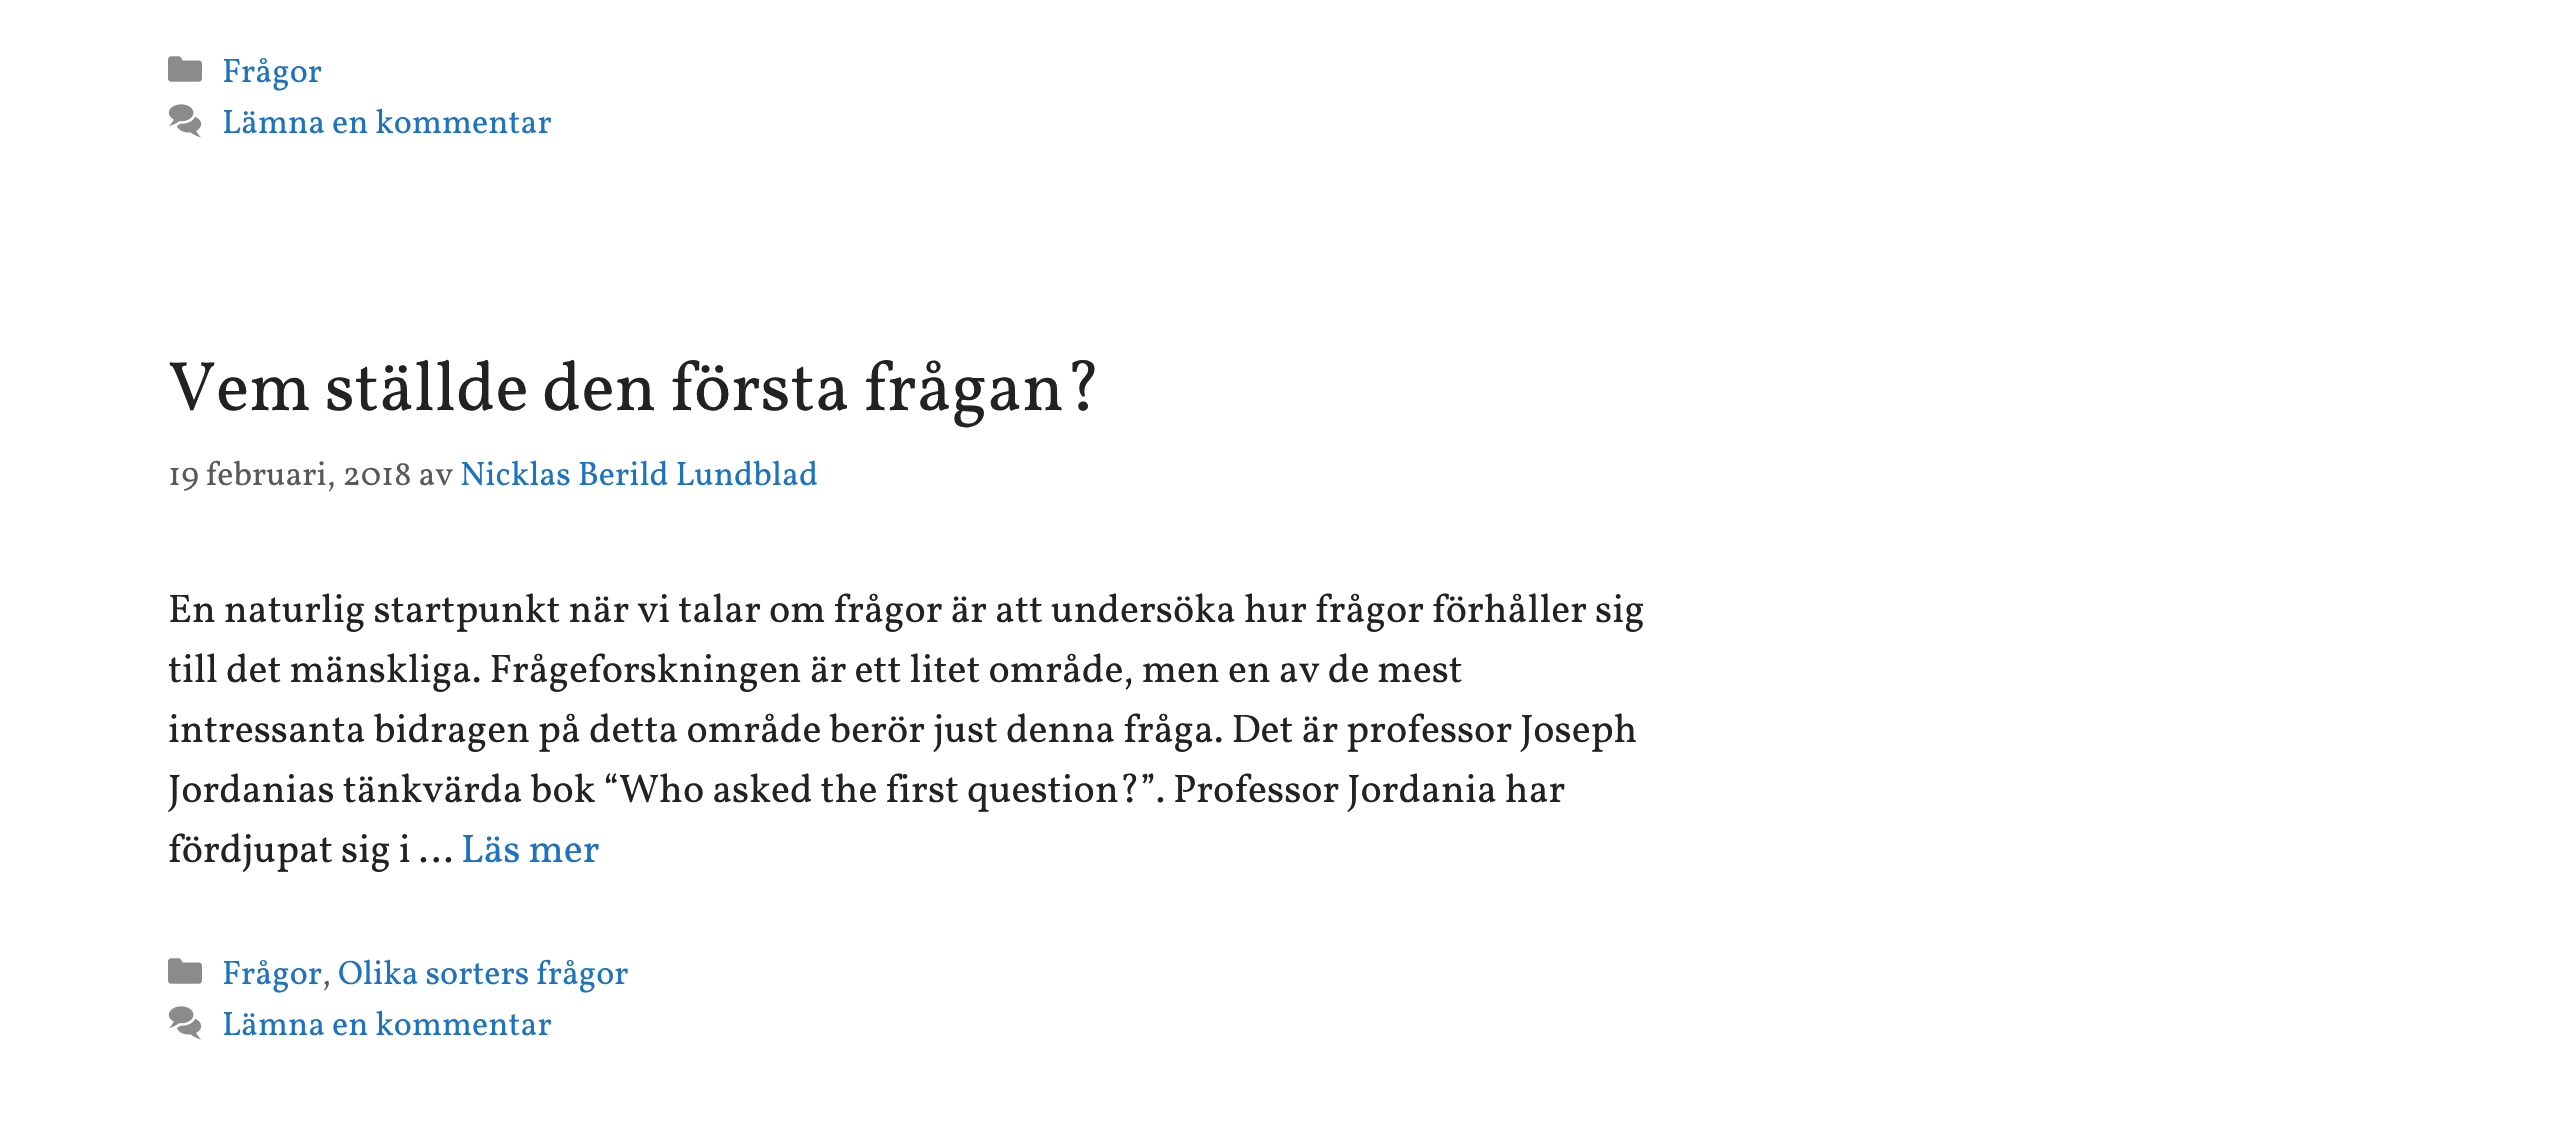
#include "include/core/SkBlurTypes.h"
#include "include/core/SkCanvas.h"
#include "include/core/SkData.h"
#include "include/core/SkFont.h"
#include "include/core/SkFontMgr.h"
#include "include/core/SkImage.h"
#include "include/core/SkMaskFilter.h"
#include "include/core/SkPaint.h"
#include "include/core/SkPathBuilder.h"
#include "include/core/SkTextBlob.h"
#include "include/effects/SkDashPathEffect.h"
#include "include/effects/SkGradientShader.h"
#include "include/utils/SkParsePath.h"

extern sk_sp<SkFontMgr> fontMgr;

static SkFont font(const char* family, int weight, float size, bool italic = false) {
    SkFontStyle style(weight, SkFontStyle::kNormal_Width,
        italic ? SkFontStyle::kItalic_Slant : SkFontStyle::kUpright_Slant);
    SkFont result(fontMgr->matchFamilyStyle(family, style), size);
    result.setSubpixel(true);
    return result;
}

static void drawLabel(SkCanvas* canvas, const char* s, float x, float y, const SkFont& font, SkColor color) {
    SkPaint ink(SkColor4f::FromColor(color));
    ink.setAntiAlias(true);
    canvas->drawString(s, x, y, font, ink);
}

static void drawTracked(SkCanvas* canvas, const char* s, float x, float y, const SkFont& font, const SkPaint& ink, float letter, float word) {
    std::vector<SkGlyphID> glyphs(font.countText(s, strlen(s), SkTextEncoding::kUTF8));
    std::vector<float> xs(glyphs.size());
    font.textToGlyphs(s, strlen(s), SkTextEncoding::kUTF8, glyphs);
    font.getXPos(glyphs, xs, x);
    float extra = 0;
    for (size_t i = 0; i < glyphs.size(); i++) {
        xs[i] += extra;
        extra += letter + word * (glyphs[i] == font.unicharToGlyph(' '));
    }
    canvas->drawTextBlob(SkTextBlob::MakeFromPosHGlyphs(glyphs, xs, y, font), 0, 0, ink);
}

static void drawPhoto(SkCanvas* canvas, const char* path, float x, float y, float w, float h) {
    auto image = SkImages::DeferredFromEncodedData(SkData::MakeFromFileName(path));
    canvas->drawImageRect(image, SkRect::MakeXYWH(x, y, w, h), SkSamplingOptions());
}

void draw(SkCanvas* canvas) {
    SkPaint paint;
    paint.setAntiAlias(true);
    canvas->clear(0xFFFFFFFF);
    drawPhoto(canvas, "assets/img1.png", 168, 56, 34, 26);
    SkFont font1 = font("Vollkorn", 400, 34);
    drawLabel(canvas, "Frågor", 222, 82, font1, 0xFF1E73BE);
    drawPhoto(canvas, "assets/img2.png", 168, 104, 34, 34);
    drawLabel(canvas, "Lämna en kommentar", 222, 133, font1, 0xFF1E73BE);
    SkFont font2 = font("Vollkorn", 400, 70);
    paint.setColor(0xFF222222);
    drawTracked(canvas, "Vem ställde den första frågan?", 168, 410, font2, paint, 0, -0.5f);
    drawLabel(canvas, "19 februari, 2018 av", 168, 485, font1, 0xFF595959);
    drawLabel(canvas, "Nicklas Berild Lundblad", 460, 485, font1, 0xFF1E73BE);
    SkFont font3 = font("Vollkorn", 400, 40);
    drawLabel(canvas, "En naturlig startpunkt när vi talar om frågor är att undersöka hur frågor förhåller sig", 168, 622, font3, 0xFF222222);
    drawLabel(canvas, "till det mänskliga. Frågeforskningen är ett litet område, men en av de mest", 168, 682, font3, 0xFF222222);
    drawLabel(canvas, "intressanta bidragen på detta område berör just denna fråga. Det är professor Joseph", 168, 742, font3, 0xFF222222);
    drawLabel(canvas, "Jordanias tänkvärda bok “Who asked the first question?”. Professor Jordania har", 168, 802, font3, 0xFF222222);
    drawLabel(canvas, "fördjupat sig i …", 168, 862, font3, 0xFF222222);
    drawLabel(canvas, "Läs mer", 461, 862, font3, 0xFF1E73BE);
    drawPhoto(canvas, "assets/img1.png", 168, 958, 34, 26);
    drawLabel(canvas, "Frågor", 222, 984, font1, 0xFF1E73BE);
    drawLabel(canvas, ",", 322, 984, font1, 0xFF595959);
    drawLabel(canvas, "Olika sorters frågor", 338, 984, font1, 0xFF1E73BE);
    drawPhoto(canvas, "assets/img2.png", 168, 1006, 34, 34);
    drawLabel(canvas, "Lämna en kommentar", 222, 1035, font1, 0xFF1E73BE);
}
